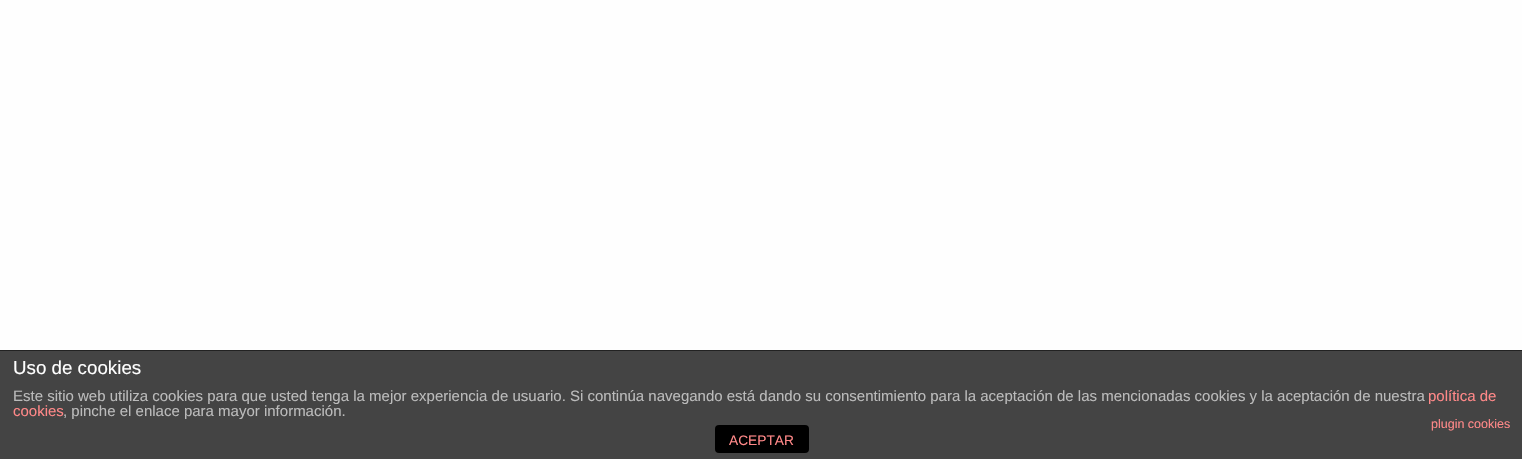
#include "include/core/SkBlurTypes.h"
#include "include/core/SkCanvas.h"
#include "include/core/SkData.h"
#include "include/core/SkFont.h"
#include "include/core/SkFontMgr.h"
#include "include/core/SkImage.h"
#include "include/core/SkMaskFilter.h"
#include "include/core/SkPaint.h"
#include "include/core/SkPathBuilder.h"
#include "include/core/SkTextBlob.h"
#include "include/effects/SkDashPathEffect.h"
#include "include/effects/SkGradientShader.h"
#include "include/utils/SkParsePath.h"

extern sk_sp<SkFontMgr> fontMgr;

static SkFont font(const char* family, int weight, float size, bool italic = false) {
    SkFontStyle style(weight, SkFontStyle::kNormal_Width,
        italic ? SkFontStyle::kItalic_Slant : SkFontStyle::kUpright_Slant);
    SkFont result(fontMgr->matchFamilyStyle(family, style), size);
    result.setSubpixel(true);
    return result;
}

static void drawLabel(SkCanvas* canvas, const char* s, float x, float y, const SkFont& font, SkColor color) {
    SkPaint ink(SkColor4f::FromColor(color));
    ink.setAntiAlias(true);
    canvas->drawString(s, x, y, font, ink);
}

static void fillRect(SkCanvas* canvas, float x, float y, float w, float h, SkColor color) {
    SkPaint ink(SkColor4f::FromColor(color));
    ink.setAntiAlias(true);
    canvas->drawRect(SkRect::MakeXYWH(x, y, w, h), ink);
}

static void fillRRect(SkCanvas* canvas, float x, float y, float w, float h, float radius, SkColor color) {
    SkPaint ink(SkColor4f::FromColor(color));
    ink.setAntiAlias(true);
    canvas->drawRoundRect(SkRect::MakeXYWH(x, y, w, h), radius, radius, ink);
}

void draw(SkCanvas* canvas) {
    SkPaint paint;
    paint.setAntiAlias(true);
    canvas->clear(0xFFFEFEFE);
    fillRect(canvas, 0, 351, 1522, 108, 0xFF444444);
    fillRect(canvas, 0, 350, 1522, 1, 0xFF222222);
    SkFont font1 = font("Liberation Sans", 400, 18.75f);
    drawLabel(canvas, "Uso de cookies", 13, 374, font1, 0xFFFFFFFF);
    SkFont font2 = font("Liberation Sans", 400, 15);
    drawLabel(canvas, "Este sitio web utiliza cookies para que usted tenga la mejor experiencia de usuario. Si continúa navegando está dando su consentimiento para la aceptación de las mencionadas cookies y la aceptación de nuestra", 13, 401, font2, 0xFFBBBBBB);
    drawLabel(canvas, "política de", 1428, 401, font2, 0xFFFF8888);
    drawLabel(canvas, "cookies", 13, 416, font2, 0xFFFF8888);
    drawLabel(canvas, ", pinche el enlace para mayor información.", 63, 416, font2, 0xFFBBBBBB);
    SkFont font3 = font("Liberation Sans", 400, 12.5f);
    drawLabel(canvas, "plugin cookies", 1431, 428, font3, 0xFFFF8888);
    fillRRect(canvas, 715, 425, 94, 28, 4, 0xFF000000);
    SkFont font4 = font("Liberation Sans", 400, 13.75f);
    drawLabel(canvas, "ACEPTAR", 729, 445, font4, 0xFFFF8888);
}
